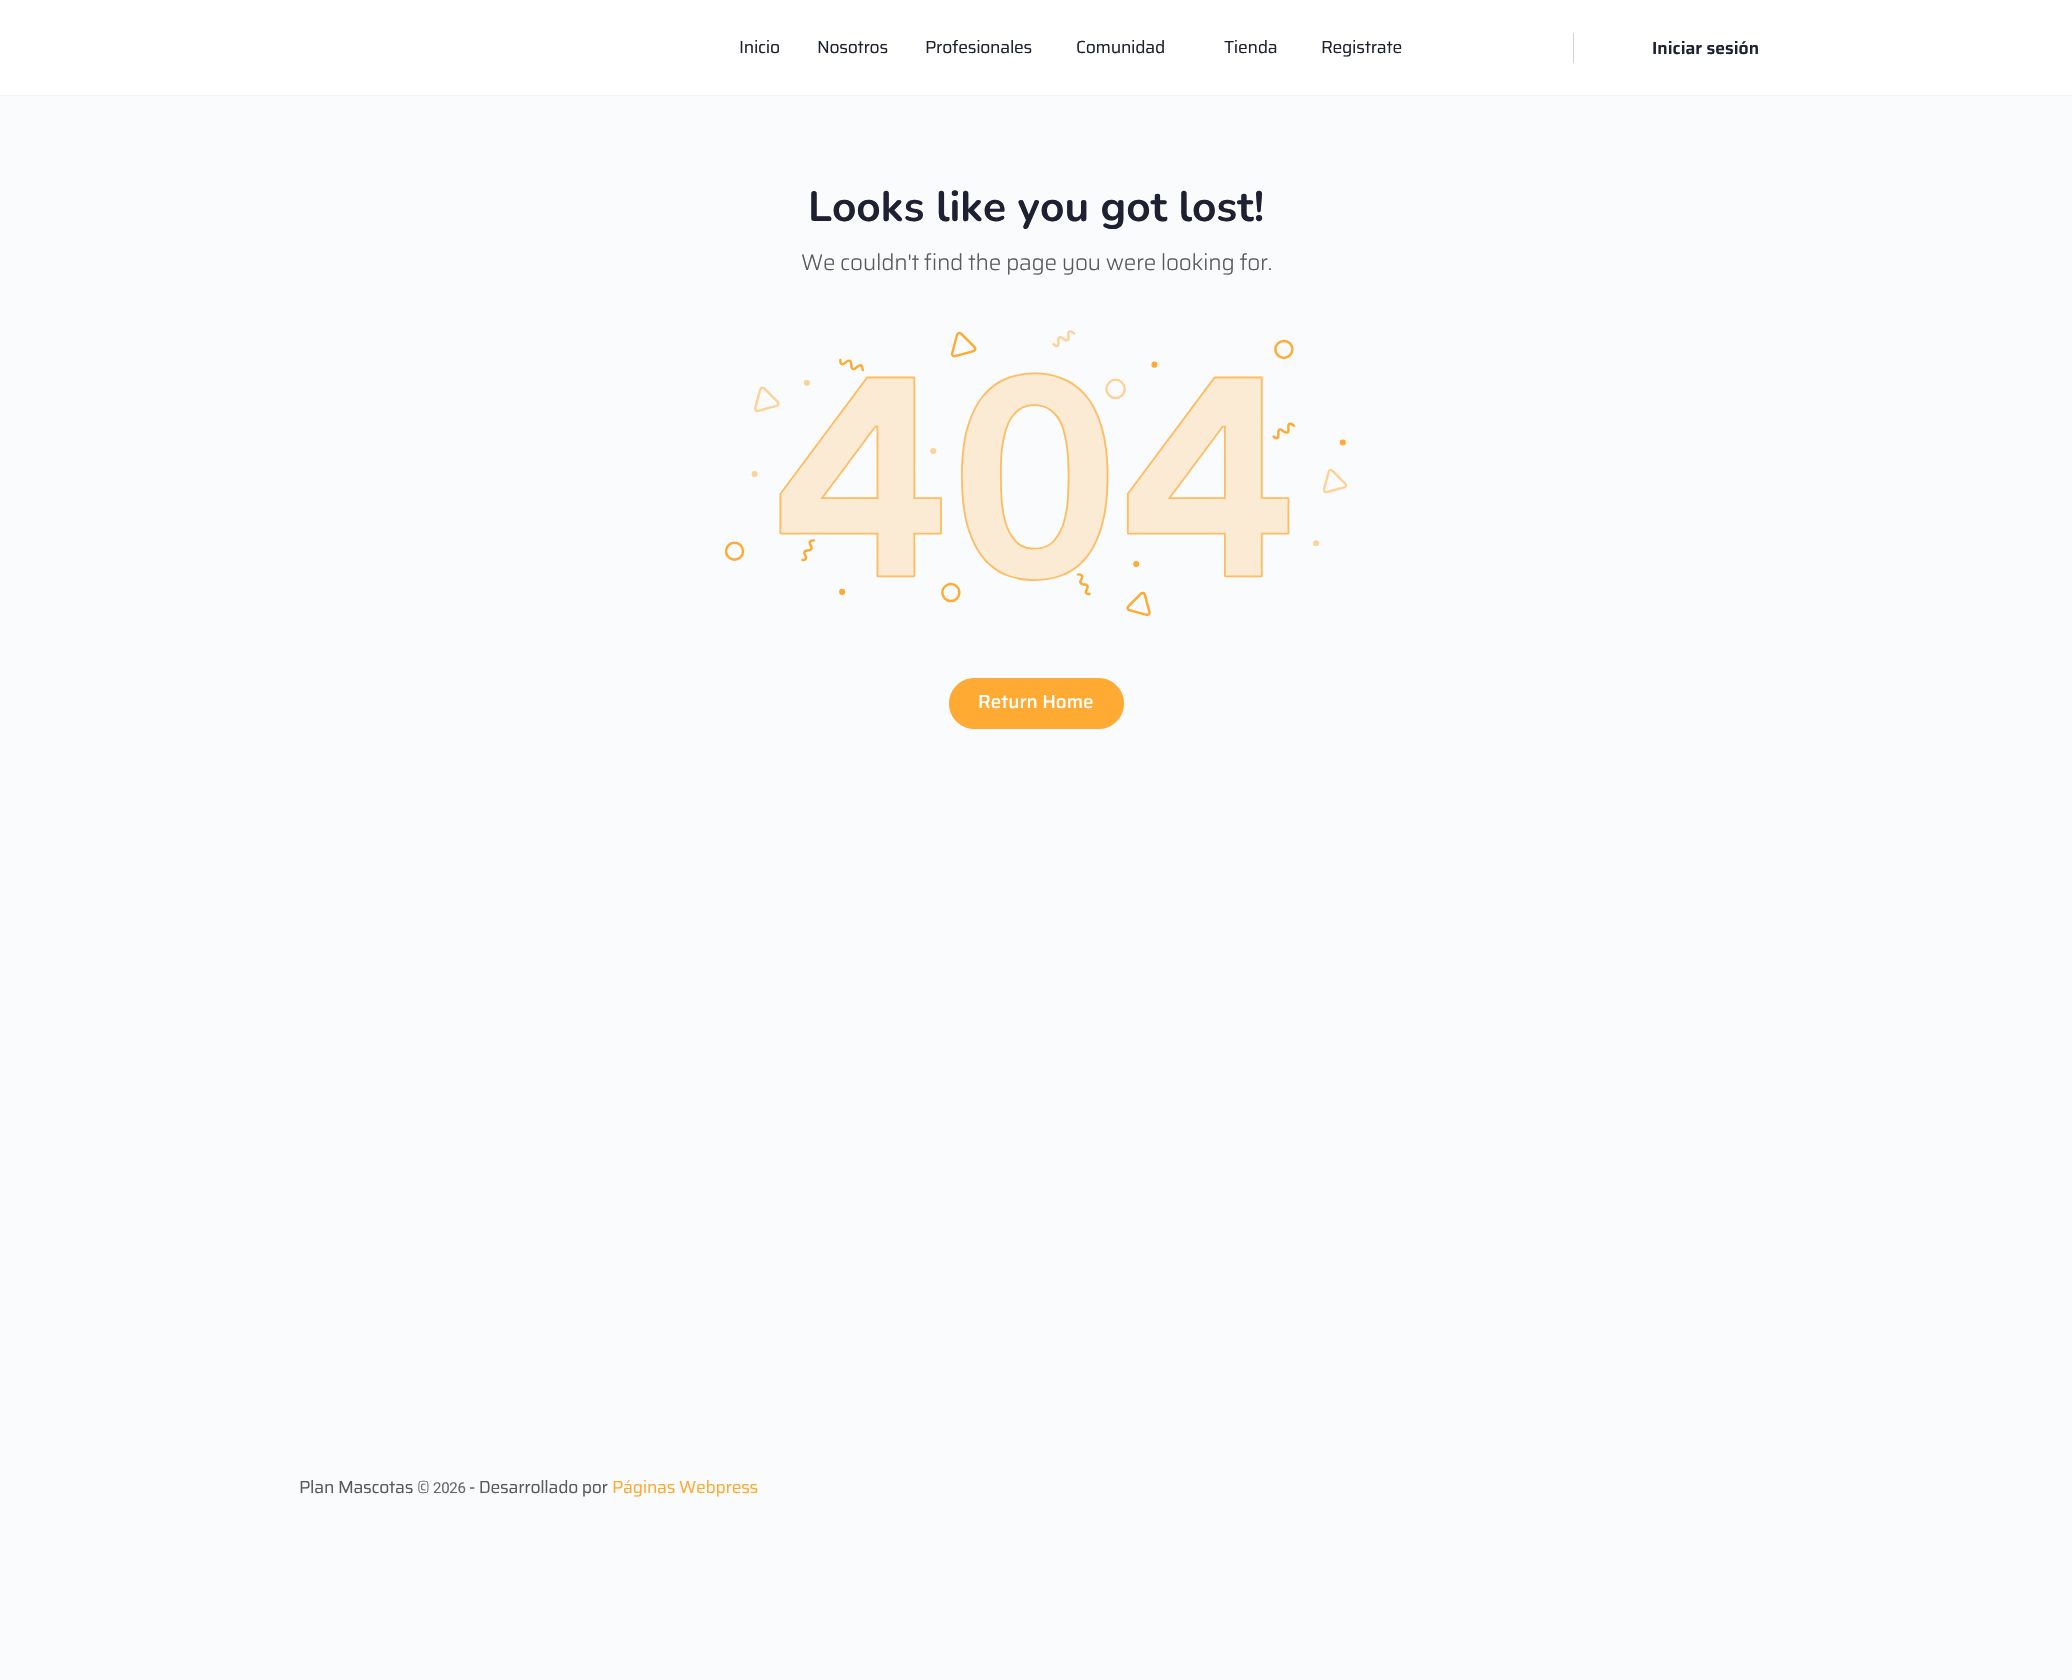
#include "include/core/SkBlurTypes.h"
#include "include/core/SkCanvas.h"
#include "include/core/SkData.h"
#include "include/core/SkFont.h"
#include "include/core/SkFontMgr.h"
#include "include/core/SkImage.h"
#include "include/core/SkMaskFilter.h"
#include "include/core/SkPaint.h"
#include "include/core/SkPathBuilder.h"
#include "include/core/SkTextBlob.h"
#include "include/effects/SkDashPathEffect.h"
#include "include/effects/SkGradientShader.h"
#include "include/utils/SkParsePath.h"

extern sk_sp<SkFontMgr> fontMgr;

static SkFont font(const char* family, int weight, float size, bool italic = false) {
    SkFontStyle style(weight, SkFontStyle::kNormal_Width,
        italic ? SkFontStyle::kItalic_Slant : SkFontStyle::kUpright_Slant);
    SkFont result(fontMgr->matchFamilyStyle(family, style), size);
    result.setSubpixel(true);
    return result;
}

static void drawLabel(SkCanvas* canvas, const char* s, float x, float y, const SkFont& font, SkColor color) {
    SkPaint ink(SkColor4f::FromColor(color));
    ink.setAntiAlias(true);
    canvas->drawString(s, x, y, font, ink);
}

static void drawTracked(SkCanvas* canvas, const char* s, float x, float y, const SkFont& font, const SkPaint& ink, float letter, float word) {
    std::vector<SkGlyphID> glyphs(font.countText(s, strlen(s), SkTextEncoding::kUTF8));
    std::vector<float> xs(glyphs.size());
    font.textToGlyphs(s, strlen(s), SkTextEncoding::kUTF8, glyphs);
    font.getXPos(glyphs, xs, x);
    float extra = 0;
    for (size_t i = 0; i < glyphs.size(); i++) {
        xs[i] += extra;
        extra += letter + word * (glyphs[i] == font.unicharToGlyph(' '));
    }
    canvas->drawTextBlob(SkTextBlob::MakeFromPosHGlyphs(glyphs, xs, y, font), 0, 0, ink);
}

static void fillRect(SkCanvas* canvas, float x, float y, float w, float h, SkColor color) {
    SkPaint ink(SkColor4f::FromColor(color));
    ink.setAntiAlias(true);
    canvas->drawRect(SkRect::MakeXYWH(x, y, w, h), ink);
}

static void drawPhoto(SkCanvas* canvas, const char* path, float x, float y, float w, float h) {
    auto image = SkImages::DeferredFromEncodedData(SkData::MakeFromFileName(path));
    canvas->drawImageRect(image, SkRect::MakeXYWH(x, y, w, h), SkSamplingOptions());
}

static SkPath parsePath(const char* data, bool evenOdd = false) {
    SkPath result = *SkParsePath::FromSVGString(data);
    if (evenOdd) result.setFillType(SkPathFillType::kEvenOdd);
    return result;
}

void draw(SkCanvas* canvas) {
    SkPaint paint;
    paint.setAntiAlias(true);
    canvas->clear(0xFFFAFBFD);
    paint.setColor(0xFFF2F3F6);
    canvas->drawPath(parsePath("M0 95V96H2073V1H2072V95Z"), paint);
    fillRect(canvas, 0, 0, 2072, 95, 0xFFFFFFFF);
    SkFont font1 = font("Saira", 400, 17.5f);
    paint.setColor(0xFF1E2132);
    drawTracked(canvas, "Inicio", 739, 53, font1, paint, -0.3f, 0);
    drawTracked(canvas, "Nosotros", 817, 53, font1, paint, -0.3f, 0);
    drawTracked(canvas, "Profesionales", 925, 53, font1, paint, -0.3f, 0);
    drawTracked(canvas, "Comunidad", 1076, 53, font1, paint, -0.3f, 0);
    drawTracked(canvas, "Tienda", 1224, 53, font1, paint, -0.3f, 0);
    drawTracked(canvas, "Registrate", 1321, 53, font1, paint, -0.3f, 0);
    fillRect(canvas, 1573, 33, 1, 30, 0xFFD2D3D6);
    SkFont font2 = font("Saira", 600, 17.5f);
    drawLabel(canvas, "Iniciar sesión", 1652, 54, font2, 0xFF1E2132);
    SkFont font3 = font("Nunito", 700, 42.5f);
    drawLabel(canvas, "Looks like you got lost!", 808, 221, font3, 0xFF1E2132);
    SkFont font4 = font("Saira", 300, 22.5f);
    paint.setColor(0xFF5A5A5A);
    drawTracked(canvas, "We couldn't find the page you were looking for.", 801, 270, font4, paint, -0.3f, 0);
    drawPhoto(canvas, "assets/img1.png", 724, 330, 623, 287);
    paint.setColor(0xFFFFAA33);
    canvas->drawRoundRect(SkRect::MakeXYWH(949.5f, 678.5f, 174, 50), 24.5f, 24.5f, paint);
    paint.setStroke(true);
    paint.setStrokeWidth(1);
    canvas->drawRoundRect(SkRect::MakeXYWH(949.5f, 678.5f, 174, 50), 24.5f, 24.5f, paint);
    SkFont font5 = font("Saira", 500, 18.75f);
    drawLabel(canvas, "Return Home", 978, 708, font5, 0xFFFFFFFF);
    paint.setStroke(false);
    paint.setColor(0xFF5A5A5A);
    drawTracked(canvas, "Plan Mascotas ©", 299, 1493, font1, paint, -0.3f, 0);
    SkFont font6 = font("Roboto", 400, 15);
    paint.setColor(0xFF666666);
    drawTracked(canvas, "2026", 433, 1493, font6, paint, -0.3f, 0);
    paint.setColor(0xFF5A5A5A);
    drawTracked(canvas, "- Desarrollado por", 469, 1493, font1, paint, -0.3f, 0);
    paint.setColor(0xFFFFAA33);
    drawTracked(canvas, "Páginas Webpress", 612, 1493, font1, paint, -0.3f, 0);
}
